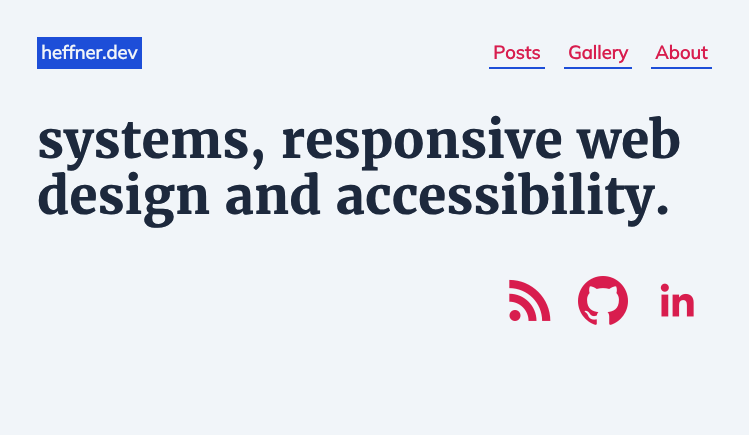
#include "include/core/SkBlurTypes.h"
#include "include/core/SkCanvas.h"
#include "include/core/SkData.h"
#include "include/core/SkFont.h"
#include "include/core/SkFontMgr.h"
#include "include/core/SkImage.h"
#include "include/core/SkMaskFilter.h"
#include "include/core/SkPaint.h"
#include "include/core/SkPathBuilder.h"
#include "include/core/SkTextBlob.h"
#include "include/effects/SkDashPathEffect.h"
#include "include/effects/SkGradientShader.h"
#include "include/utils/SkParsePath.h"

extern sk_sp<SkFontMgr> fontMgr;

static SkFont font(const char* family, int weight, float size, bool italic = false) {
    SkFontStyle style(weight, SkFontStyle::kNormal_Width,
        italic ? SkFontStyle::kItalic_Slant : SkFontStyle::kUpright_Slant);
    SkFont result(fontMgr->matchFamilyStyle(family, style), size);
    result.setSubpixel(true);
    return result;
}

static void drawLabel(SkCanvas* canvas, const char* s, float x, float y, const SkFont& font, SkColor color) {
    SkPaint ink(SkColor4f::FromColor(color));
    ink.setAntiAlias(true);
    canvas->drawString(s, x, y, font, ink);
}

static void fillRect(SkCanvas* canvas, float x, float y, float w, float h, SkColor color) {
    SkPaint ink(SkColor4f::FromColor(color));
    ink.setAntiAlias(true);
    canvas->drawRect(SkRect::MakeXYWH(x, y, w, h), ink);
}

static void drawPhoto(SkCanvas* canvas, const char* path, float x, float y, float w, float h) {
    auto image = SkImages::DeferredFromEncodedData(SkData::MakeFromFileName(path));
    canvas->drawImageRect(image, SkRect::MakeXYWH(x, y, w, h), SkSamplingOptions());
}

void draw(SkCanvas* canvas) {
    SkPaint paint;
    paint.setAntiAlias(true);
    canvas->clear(0xFFF1F5F9);
    fillRect(canvas, 37, 37, 105, 32, 0xFF1D4ED8);
    SkFont font1 = font("Mulish", 700, 18.5f);
    drawLabel(canvas, "heffner.dev", 41, 59, font1, 0xFFF1F5F9);
    fillRect(canvas, 489, 67, 56, 2, 0xFF1D4ED8);
    drawLabel(canvas, "Posts", 493, 59, font1, 0xFFD81D4E);
    fillRect(canvas, 564, 67, 68, 2, 0xFF1D4ED8);
    drawLabel(canvas, "Gallery", 568, 59, font1, 0xFFD81D4E);
    fillRect(canvas, 651, 67, 61, 2, 0xFF1D4ED8);
    drawLabel(canvas, "About", 655, 59, font1, 0xFFD81D4E);
    SkFont font2 = font("Merriweather", 700, 51.25f);
    drawLabel(canvas, "systems, responsive web", 37, 158, font2, 0xFF1D293D);
    drawLabel(canvas, "design and accessibility.", 37, 214, font2, 0xFF1D293D);
    drawPhoto(canvas, "assets/img1.png", 509, 279, 42, 42);
    drawPhoto(canvas, "assets/img2.png", 578, 276, 50, 49);
    drawPhoto(canvas, "assets/img3.png", 660, 283, 34, 34);
}
